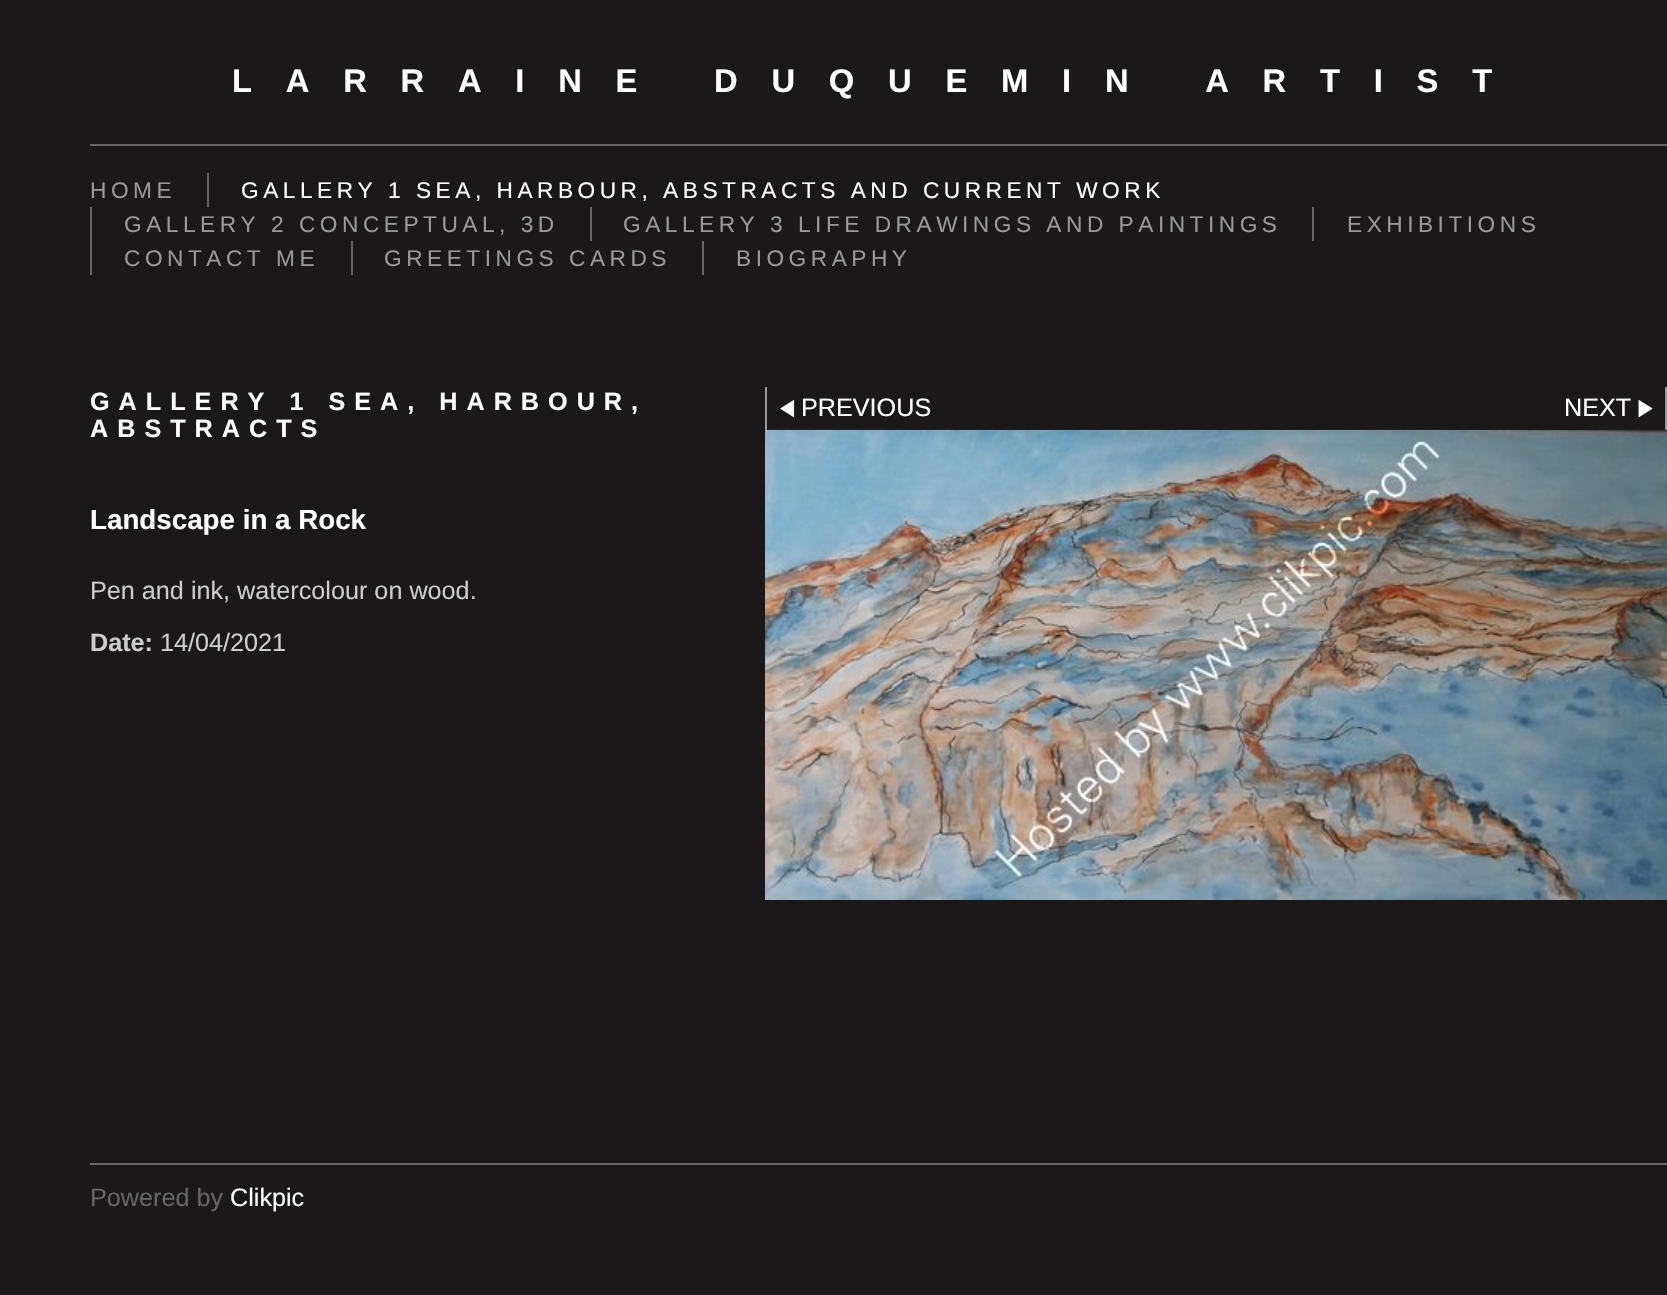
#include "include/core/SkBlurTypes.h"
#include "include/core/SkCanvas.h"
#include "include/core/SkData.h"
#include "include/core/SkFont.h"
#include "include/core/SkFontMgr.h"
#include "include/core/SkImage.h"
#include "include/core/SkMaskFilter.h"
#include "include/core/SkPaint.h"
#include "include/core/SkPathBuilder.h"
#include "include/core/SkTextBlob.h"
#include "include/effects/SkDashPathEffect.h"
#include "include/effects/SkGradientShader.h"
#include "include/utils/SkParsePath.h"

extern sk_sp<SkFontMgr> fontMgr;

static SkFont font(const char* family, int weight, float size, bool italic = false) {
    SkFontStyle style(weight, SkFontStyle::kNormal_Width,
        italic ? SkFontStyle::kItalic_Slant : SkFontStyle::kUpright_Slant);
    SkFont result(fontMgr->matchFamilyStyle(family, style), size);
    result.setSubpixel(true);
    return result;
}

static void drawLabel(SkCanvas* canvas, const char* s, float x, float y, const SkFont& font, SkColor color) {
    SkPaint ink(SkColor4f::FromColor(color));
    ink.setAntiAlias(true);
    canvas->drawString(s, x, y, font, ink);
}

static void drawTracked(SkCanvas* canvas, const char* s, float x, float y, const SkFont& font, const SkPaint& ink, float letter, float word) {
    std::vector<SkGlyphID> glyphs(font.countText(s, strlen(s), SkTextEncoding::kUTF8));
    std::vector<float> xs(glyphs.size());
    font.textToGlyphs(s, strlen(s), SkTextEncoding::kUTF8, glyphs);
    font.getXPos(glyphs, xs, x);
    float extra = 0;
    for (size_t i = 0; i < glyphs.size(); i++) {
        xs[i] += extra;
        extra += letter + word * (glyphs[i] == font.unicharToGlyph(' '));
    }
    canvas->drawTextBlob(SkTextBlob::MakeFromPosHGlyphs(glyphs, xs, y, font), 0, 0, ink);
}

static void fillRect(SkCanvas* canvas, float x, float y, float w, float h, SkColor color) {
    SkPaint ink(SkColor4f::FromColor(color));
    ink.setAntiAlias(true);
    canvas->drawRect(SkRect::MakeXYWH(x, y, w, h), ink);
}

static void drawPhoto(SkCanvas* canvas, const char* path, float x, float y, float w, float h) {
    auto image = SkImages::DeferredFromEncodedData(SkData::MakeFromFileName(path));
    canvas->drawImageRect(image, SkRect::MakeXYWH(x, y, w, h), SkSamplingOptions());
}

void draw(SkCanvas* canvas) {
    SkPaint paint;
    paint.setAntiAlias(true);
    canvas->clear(0xFF1A1818);
    fillRect(canvas, 90, 144, 1577, 2, 0xFF666666);
    SkFont font1 = font("Liberation Sans", 700, 32.75f);
    paint.setColor(0xFFFFFFFF);
    drawTracked(canvas, "LARRAINE DUQUEMIN ARTIST", 232, 92, font1, paint, 33.75f, 0);
    SkFont font2 = font("Liberation Sans", 400, 22.7f);
    paint.setColor(0xFF999999);
    drawTracked(canvas, "HOME", 90, 198, font2, paint, 4.5f, 0);
    fillRect(canvas, 207, 173, 2, 34, 0xFF666666);
    paint.setColor(0xFFFFFFFF);
    drawTracked(canvas, "GALLERY 1 SEA, HARBOUR, ABSTRACTS AND CURRENT WORK", 241, 198, font2, paint, 4.5f, 0);
    fillRect(canvas, 90, 207, 2, 68, 0xFF666666);
    paint.setColor(0xFF999999);
    drawTracked(canvas, "GALLERY 2 CONCEPTUAL, 3D", 124, 232, font2, paint, 4.5f, 0);
    fillRect(canvas, 590, 207, 2, 34, 0xFF666666);
    drawTracked(canvas, "GALLERY 3 LIFE DRAWINGS AND PAINTINGS", 623, 232, font2, paint, 4.5f, 0);
    fillRect(canvas, 1312, 207, 2, 34, 0xFF666666);
    drawTracked(canvas, "EXHIBITIONS", 1347, 232, font2, paint, 4.5f, 0);
    drawTracked(canvas, "CONTACT ME", 124, 266, font2, paint, 4.5f, 0);
    fillRect(canvas, 351, 241, 2, 34, 0xFF666666);
    drawTracked(canvas, "GREETINGS CARDS", 384, 266, font2, paint, 4.5f, 0);
    fillRect(canvas, 702, 241, 2, 34, 0xFF666666);
    drawTracked(canvas, "BIOGRAPHY", 736, 266, font2, paint, 4.5f, 0);
    SkFont font3 = font("Liberation Sans", 700, 25.2f);
    paint.setColor(0xFFFFFFFF);
    drawTracked(canvas, "GALLERY 1 SEA, HARBOUR,", 90, 410, font3, paint, 9, 0);
    drawTracked(canvas, "ABSTRACTS", 90, 437, font3, paint, 9, 0);
    SkFont font4 = font("Liberation Sans", 700, 27.75f);
    drawLabel(canvas, "Landscape in a Rock", 90, 529, font4, 0xFFFFFFFF);
    SkFont font5 = font("Liberation Sans", 400, 25.2f);
    drawLabel(canvas, "Pen and ink, watercolour on wood.", 90, 599, font5, 0xFFCCCCCC);
    drawLabel(canvas, "Date:", 90, 651, font3, 0xFFCCCCCC);
    drawLabel(canvas, "14/04/2021", 160, 651, font5, 0xFFCCCCCC);
    fillRect(canvas, 765, 387, 2, 43, 0xFF999999);
    drawPhoto(canvas, "assets/img1.png", 780, 400, 15, 18);
    drawLabel(canvas, "PREVIOUS", 801, 416, font5, 0xFFFFFFFF);
    fillRect(canvas, 1665, 387, 2, 43, 0xFF999999);
    drawLabel(canvas, "NEXT", 1564, 416, font5, 0xFFFFFFFF);
    drawPhoto(canvas, "assets/img2.png", 1638, 399, 15, 19);
    drawPhoto(canvas, "assets/img3.png", 765, 429, 902, 471);
    fillRect(canvas, 90, 1163, 1577, 2, 0xFF666666);
    drawLabel(canvas, "Powered by", 90, 1206, font5, 0xFF666666);
    drawLabel(canvas, "Clikpic", 230, 1206, font5, 0xFFFFFFFF);
}
